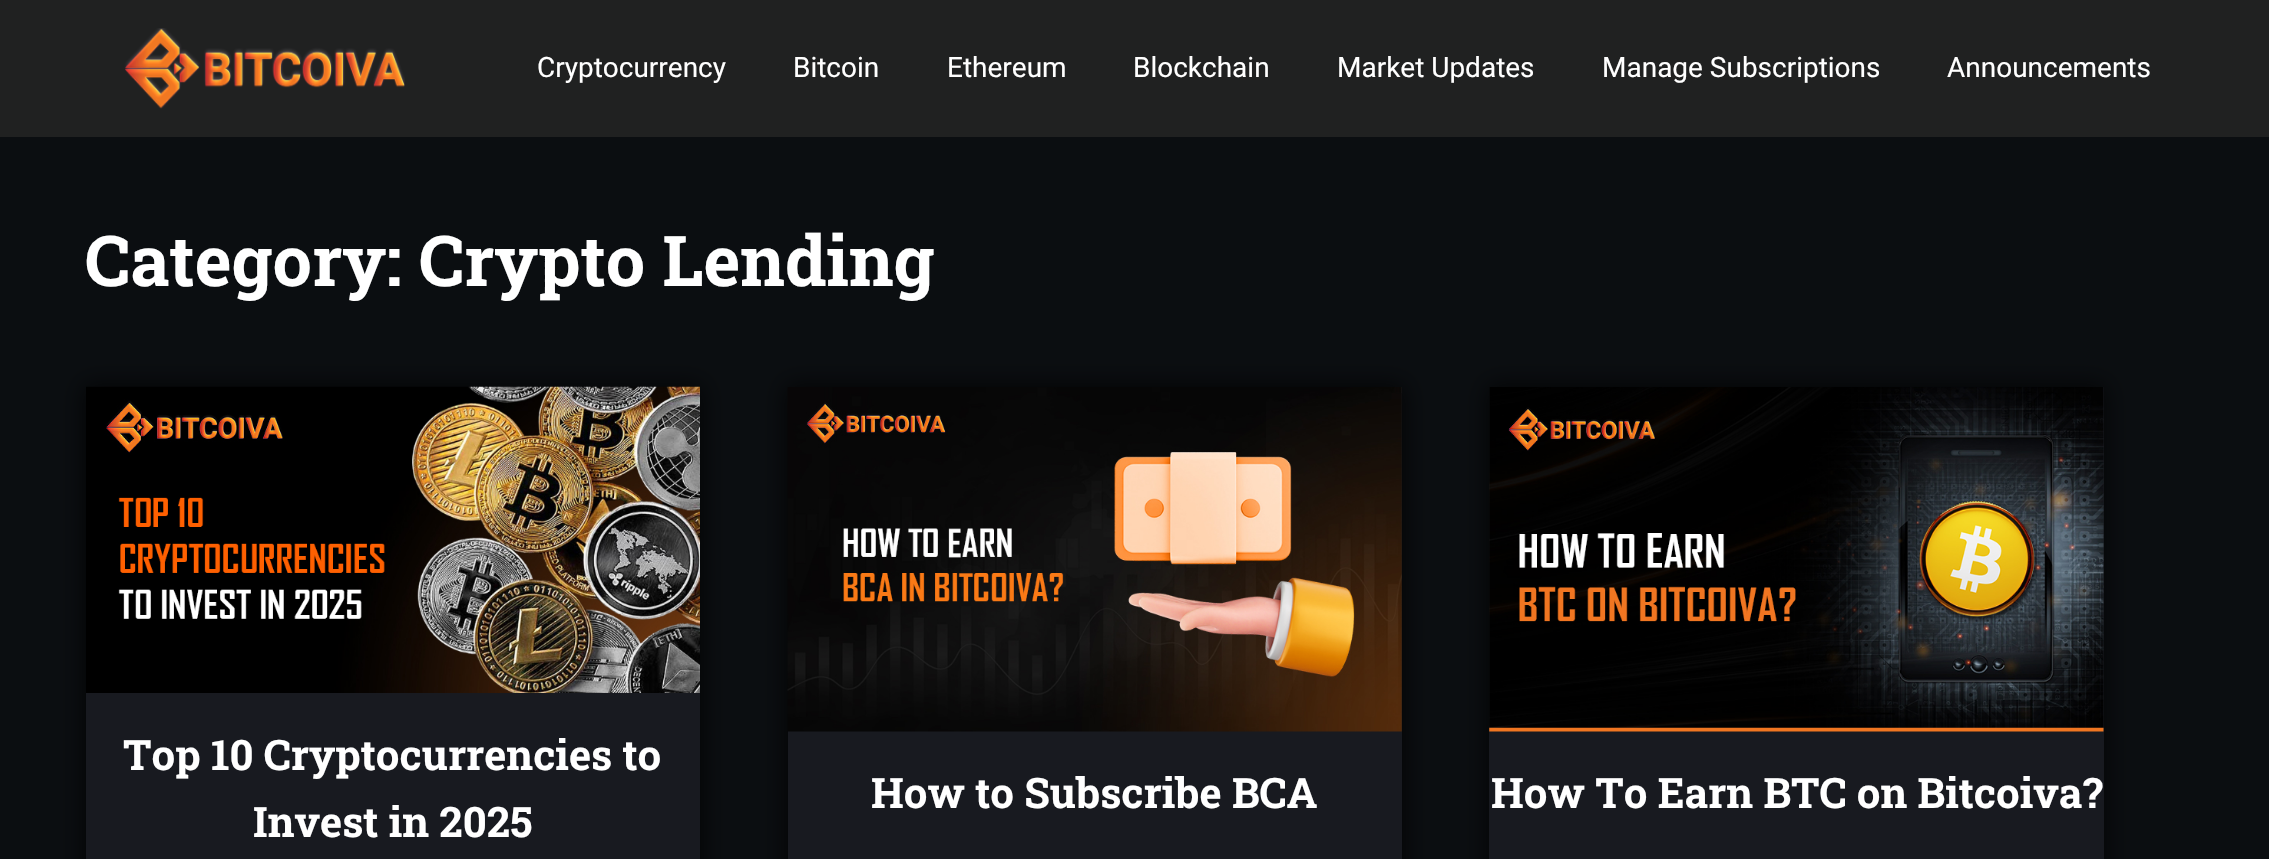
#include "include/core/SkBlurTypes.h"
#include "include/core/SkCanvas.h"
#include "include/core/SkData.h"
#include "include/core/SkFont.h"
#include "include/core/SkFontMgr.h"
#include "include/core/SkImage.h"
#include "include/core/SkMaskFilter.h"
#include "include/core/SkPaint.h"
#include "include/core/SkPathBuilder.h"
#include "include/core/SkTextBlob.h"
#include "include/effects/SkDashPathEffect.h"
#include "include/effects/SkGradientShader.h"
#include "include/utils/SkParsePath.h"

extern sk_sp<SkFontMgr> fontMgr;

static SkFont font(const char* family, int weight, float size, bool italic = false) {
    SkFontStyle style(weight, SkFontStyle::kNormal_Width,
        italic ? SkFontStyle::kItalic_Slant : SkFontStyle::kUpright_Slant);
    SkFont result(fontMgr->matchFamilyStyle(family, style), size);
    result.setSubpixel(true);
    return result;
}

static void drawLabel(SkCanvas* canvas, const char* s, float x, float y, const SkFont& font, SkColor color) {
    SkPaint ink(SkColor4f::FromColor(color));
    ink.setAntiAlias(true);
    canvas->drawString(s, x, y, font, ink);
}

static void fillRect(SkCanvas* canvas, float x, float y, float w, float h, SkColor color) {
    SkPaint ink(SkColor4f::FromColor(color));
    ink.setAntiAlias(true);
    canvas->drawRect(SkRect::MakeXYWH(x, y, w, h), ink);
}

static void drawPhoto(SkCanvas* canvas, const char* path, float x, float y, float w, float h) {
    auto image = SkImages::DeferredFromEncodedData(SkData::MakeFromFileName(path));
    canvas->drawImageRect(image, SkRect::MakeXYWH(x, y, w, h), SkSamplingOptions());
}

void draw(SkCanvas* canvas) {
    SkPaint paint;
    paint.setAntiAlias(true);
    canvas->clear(0xFF0B0E11);
    fillRect(canvas, 0, 0, 2269, 137, 0xFF202121);
    drawPhoto(canvas, "assets/img1.png", 124, 28, 281, 81);
    SkFont font1 = font("Roboto", 400, 28);
    drawLabel(canvas, "Cryptocurrency", 537, 77, font1, 0xFFFFFFFF);
    drawLabel(canvas, "Bitcoin", 793, 77, font1, 0xFFFFFFFF);
    drawLabel(canvas, "Ethereum", 947, 77, font1, 0xFFFFFFFF);
    drawLabel(canvas, "Blockchain", 1133, 77, font1, 0xFFFFFFFF);
    drawLabel(canvas, "Market Updates", 1337, 77, font1, 0xFFFFFFFF);
    drawLabel(canvas, "Manage Subscriptions", 1602, 77, font1, 0xFFFFFFFF);
    drawLabel(canvas, "Announcements", 1947, 77, font1, 0xFFFFFFFF);
    SkFont font2 = font("Roboto Slab", 700, 70);
    drawLabel(canvas, "Category: Crypto Lending", 85, 286, font2, 0xFFFFFFFF);
    paint.setColor(0xBF000000);
    paint.setMaskFilter(SkMaskFilter::MakeBlur(kNormal_SkBlurStyle, 11.5f));
    canvas->drawRect(SkRect::MakeXYWH(84, 385, 618, 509), paint);
    paint.setMaskFilter(nullptr);
    fillRect(canvas, 86, 693, 614, 166, 0xFF181A20);
    drawPhoto(canvas, "assets/img2.png", 86, 386, 614, 307);
    SkFont font3 = font("Roboto Slab", 700, 42);
    drawLabel(canvas, "Top 10 Cryptocurrencies to", 123, 770, font3, 0xFFFFFFFF);
    drawLabel(canvas, "Invest in 2025", 253, 837, font3, 0xFFFFFFFF);
    paint.setMaskFilter(SkMaskFilter::MakeBlur(kNormal_SkBlurStyle, 11.5f));
    canvas->drawRect(SkRect::MakeXYWH(786, 385, 618, 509), paint);
    paint.setMaskFilter(nullptr);
    fillRect(canvas, 788, 387, 614, 472, 0xFF181A20);
    drawPhoto(canvas, "assets/img3.png", 787, 387, 615, 345);
    drawLabel(canvas, "How to Subscribe BCA", 871, 808, font3, 0xFFFFFFFF);
    paint.setMaskFilter(SkMaskFilter::MakeBlur(kNormal_SkBlurStyle, 11.5f));
    canvas->drawRect(SkRect::MakeXYWH(1488, 385, 617, 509), paint);
    paint.setMaskFilter(nullptr);
    fillRect(canvas, 1489, 387, 615, 472, 0xFF181A20);
    drawPhoto(canvas, "assets/img4.png", 1489, 387, 615, 345);
    drawLabel(canvas, "How To Earn BTC on Bitcoiva?", 1491, 808, font3, 0xFFFFFFFF);
}
